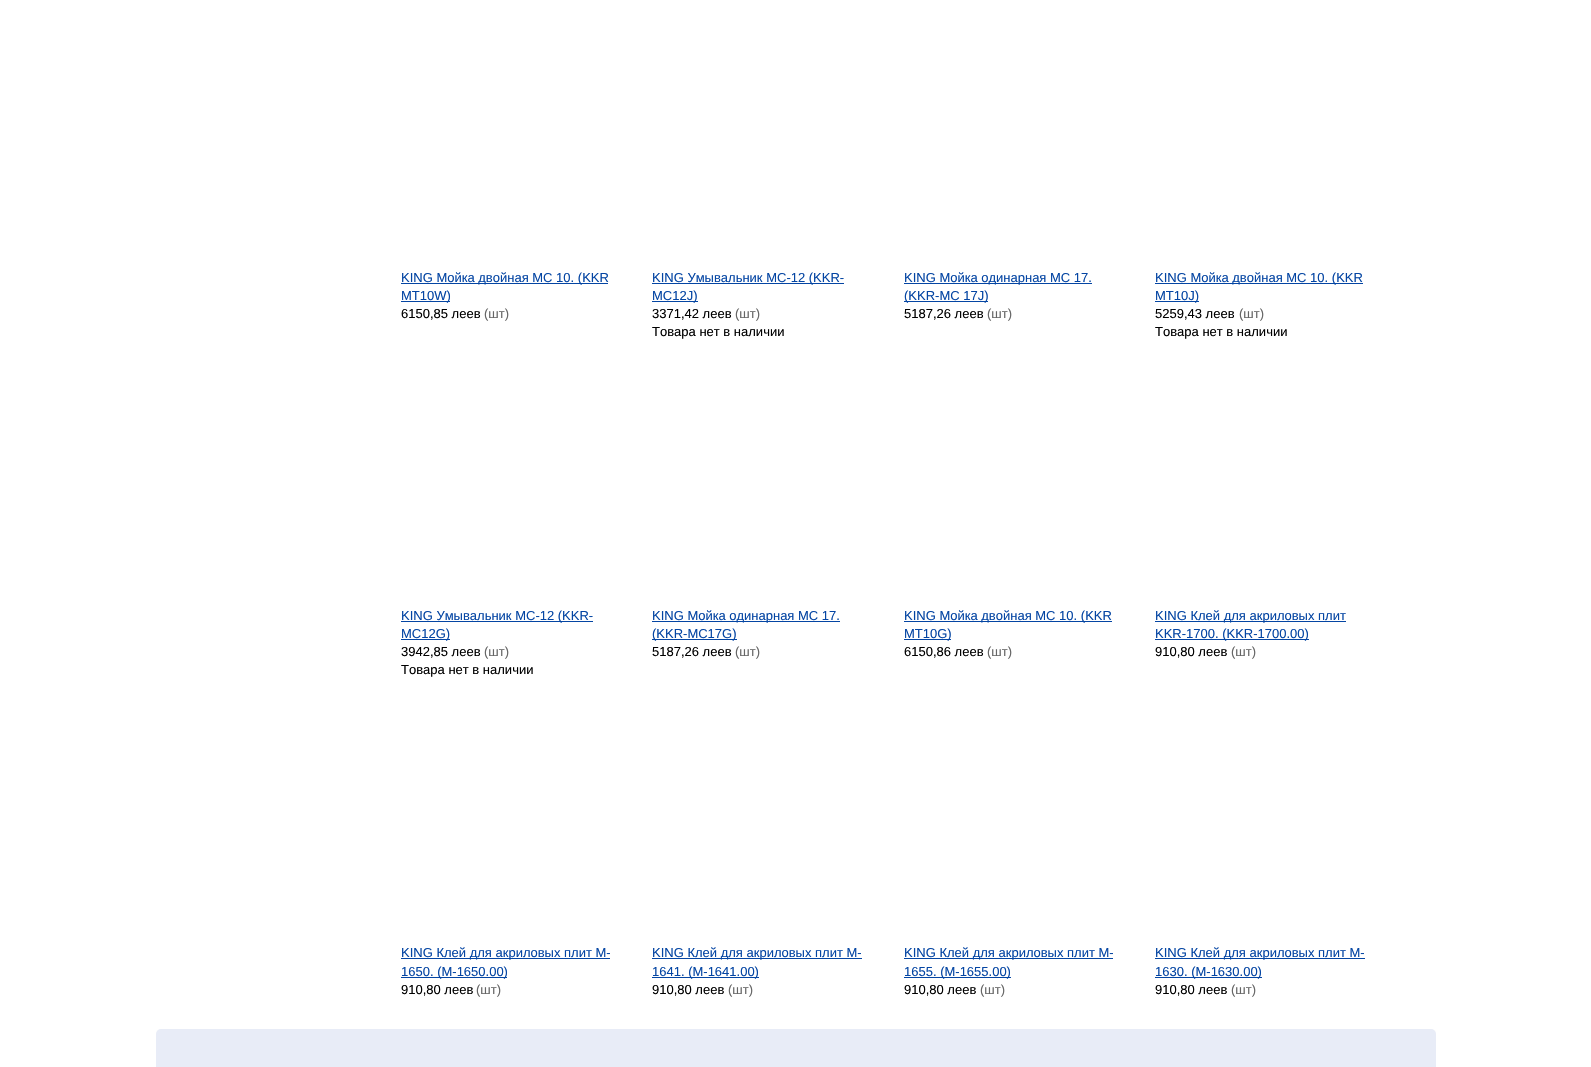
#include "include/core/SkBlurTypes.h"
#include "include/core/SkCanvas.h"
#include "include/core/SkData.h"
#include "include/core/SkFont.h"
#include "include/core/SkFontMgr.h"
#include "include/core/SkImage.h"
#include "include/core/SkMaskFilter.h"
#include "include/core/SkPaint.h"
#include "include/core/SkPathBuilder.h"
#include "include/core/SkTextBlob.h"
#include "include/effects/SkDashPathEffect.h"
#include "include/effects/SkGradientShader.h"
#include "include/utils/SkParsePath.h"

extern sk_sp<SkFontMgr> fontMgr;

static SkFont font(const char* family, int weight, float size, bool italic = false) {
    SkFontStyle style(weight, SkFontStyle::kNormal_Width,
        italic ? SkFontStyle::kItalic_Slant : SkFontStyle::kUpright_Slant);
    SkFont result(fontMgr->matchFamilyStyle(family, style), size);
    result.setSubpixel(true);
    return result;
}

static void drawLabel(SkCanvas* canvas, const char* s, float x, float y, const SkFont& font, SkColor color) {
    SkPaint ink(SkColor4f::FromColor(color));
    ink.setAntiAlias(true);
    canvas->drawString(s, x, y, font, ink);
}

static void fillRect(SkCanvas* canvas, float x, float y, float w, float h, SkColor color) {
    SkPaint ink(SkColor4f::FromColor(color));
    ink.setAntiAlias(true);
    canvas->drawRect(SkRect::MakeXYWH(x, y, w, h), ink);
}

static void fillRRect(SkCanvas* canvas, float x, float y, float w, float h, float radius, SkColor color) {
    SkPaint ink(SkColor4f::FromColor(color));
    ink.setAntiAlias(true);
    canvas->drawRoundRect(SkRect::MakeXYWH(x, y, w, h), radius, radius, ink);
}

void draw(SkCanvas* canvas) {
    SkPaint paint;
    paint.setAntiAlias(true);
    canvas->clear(0xFFFFFFFF);
    fillRect(canvas, 401, 283, 207, 1, 0xFF0445A3);
    SkFont font1 = font("Liberation Sans", 400, 13);
    drawLabel(canvas, "KING Мойка двойная MC 10. (KKR", 401, 282, font1, 0xFF0445A3);
    fillRect(canvas, 401, 301, 49, 1, 0xFF0445A3);
    drawLabel(canvas, "MT10W)", 401, 300, font1, 0xFF0445A3);
    drawLabel(canvas, "6150,85 леев", 401, 318, font1, 0xFF000000);
    drawLabel(canvas, "(шт)", 484, 318, font1, 0xFF666666);
    fillRect(canvas, 652, 283, 192, 1, 0xFF0445A3);
    drawLabel(canvas, "KING Умывальник MC-12 (KKR-", 652, 282, font1, 0xFF0445A3);
    fillRect(canvas, 652, 301, 46, 1, 0xFF0445A3);
    drawLabel(canvas, "MC12J)", 652, 300, font1, 0xFF0445A3);
    drawLabel(canvas, "3371,42 леев", 652, 318, font1, 0xFF000000);
    drawLabel(canvas, "(шт)", 735, 318, font1, 0xFF666666);
    drawLabel(canvas, "Товара нет в наличии", 652, 336, font1, 0xFF000000);
    fillRect(canvas, 904, 283, 188, 1, 0xFF0445A3);
    drawLabel(canvas, "KING Мойка одинарная MC 17.", 904, 282, font1, 0xFF0445A3);
    fillRect(canvas, 904, 301, 84, 1, 0xFF0445A3);
    drawLabel(canvas, "(KKR-MC 17J)", 904, 300, font1, 0xFF0445A3);
    drawLabel(canvas, "5187,26 леев", 904, 318, font1, 0xFF000000);
    drawLabel(canvas, "(шт)", 987, 318, font1, 0xFF666666);
    fillRect(canvas, 1155, 283, 208, 1, 0xFF0445A3);
    drawLabel(canvas, "KING Мойка двойная MC 10. (KKR", 1155, 282, font1, 0xFF0445A3);
    fillRect(canvas, 1155, 301, 44, 1, 0xFF0445A3);
    drawLabel(canvas, "MT10J)", 1155, 300, font1, 0xFF0445A3);
    drawLabel(canvas, "5259,43 леев", 1155, 318, font1, 0xFF000000);
    drawLabel(canvas, "(шт)", 1239, 318, font1, 0xFF666666);
    drawLabel(canvas, "Товара нет в наличии", 1155, 336, font1, 0xFF000000);
    fillRect(canvas, 401, 621, 192, 1, 0xFF0445A3);
    drawLabel(canvas, "KING Умывальник MC-12 (KKR-", 401, 620, font1, 0xFF0445A3);
    fillRect(canvas, 401, 639, 49, 1, 0xFF0445A3);
    drawLabel(canvas, "MC12G)", 401, 638, font1, 0xFF0445A3);
    drawLabel(canvas, "3942,85 леев", 401, 656, font1, 0xFF000000);
    drawLabel(canvas, "(шт)", 484, 656, font1, 0xFF666666);
    drawLabel(canvas, "Товара нет в наличии", 401, 674, font1, 0xFF000000);
    fillRect(canvas, 652, 621, 188, 1, 0xFF0445A3);
    drawLabel(canvas, "KING Мойка одинарная MC 17.", 652, 620, font1, 0xFF0445A3);
    fillRect(canvas, 652, 639, 85, 1, 0xFF0445A3);
    drawLabel(canvas, "(KKR-MC17G)", 652, 638, font1, 0xFF0445A3);
    drawLabel(canvas, "5187,26 леев", 652, 656, font1, 0xFF000000);
    drawLabel(canvas, "(шт)", 735, 656, font1, 0xFF666666);
    fillRect(canvas, 904, 621, 208, 1, 0xFF0445A3);
    drawLabel(canvas, "KING Мойка двойная MC 10. (KKR", 904, 620, font1, 0xFF0445A3);
    fillRect(canvas, 904, 639, 47, 1, 0xFF0445A3);
    drawLabel(canvas, "MT10G)", 904, 638, font1, 0xFF0445A3);
    drawLabel(canvas, "6150,86 леев", 904, 656, font1, 0xFF000000);
    drawLabel(canvas, "(шт)", 987, 656, font1, 0xFF666666);
    fillRect(canvas, 1155, 621, 191, 1, 0xFF0445A3);
    drawLabel(canvas, "KING Клей для акриловых плит", 1155, 620, font1, 0xFF0445A3);
    fillRect(canvas, 1155, 639, 154, 1, 0xFF0445A3);
    drawLabel(canvas, "KKR-1700. (KKR-1700.00)", 1155, 638, font1, 0xFF0445A3);
    drawLabel(canvas, "910,80 леев", 1155, 656, font1, 0xFF000000);
    drawLabel(canvas, "(шт)", 1231, 656, font1, 0xFF666666);
    fillRect(canvas, 401, 958, 209, 1, 0xFF0445A3);
    drawLabel(canvas, "KING Клей для акриловых плит M-", 401, 957, font1, 0xFF0445A3);
    fillRect(canvas, 401, 977, 106, 1, 0xFF0445A3);
    drawLabel(canvas, "1650. (M-1650.00)", 401, 976, font1, 0xFF0445A3);
    drawLabel(canvas, "910,80 леев", 401, 994, font1, 0xFF000000);
    drawLabel(canvas, "(шт)", 476, 994, font1, 0xFF666666);
    fillRect(canvas, 652, 958, 210, 1, 0xFF0445A3);
    drawLabel(canvas, "KING Клей для акриловых плит M-", 652, 957, font1, 0xFF0445A3);
    fillRect(canvas, 652, 977, 107, 1, 0xFF0445A3);
    drawLabel(canvas, "1641. (M-1641.00)", 652, 976, font1, 0xFF0445A3);
    drawLabel(canvas, "910,80 леев", 652, 994, font1, 0xFF000000);
    drawLabel(canvas, "(шт)", 728, 994, font1, 0xFF666666);
    fillRect(canvas, 904, 958, 209, 1, 0xFF0445A3);
    drawLabel(canvas, "KING Клей для акриловых плит M-", 904, 957, font1, 0xFF0445A3);
    fillRect(canvas, 904, 977, 107, 1, 0xFF0445A3);
    drawLabel(canvas, "1655. (M-1655.00)", 904, 976, font1, 0xFF0445A3);
    drawLabel(canvas, "910,80 леев", 904, 994, font1, 0xFF000000);
    drawLabel(canvas, "(шт)", 980, 994, font1, 0xFF666666);
    fillRect(canvas, 1155, 958, 210, 1, 0xFF0445A3);
    drawLabel(canvas, "KING Клей для акриловых плит M-", 1155, 957, font1, 0xFF0445A3);
    fillRect(canvas, 1155, 977, 107, 1, 0xFF0445A3);
    drawLabel(canvas, "1630. (M-1630.00)", 1155, 976, font1, 0xFF0445A3);
    drawLabel(canvas, "910,80 леев", 1155, 994, font1, 0xFF000000);
    drawLabel(canvas, "(шт)", 1231, 994, font1, 0xFF666666);
    fillRRect(canvas, 156, 1029, 1280, 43, 5, 0xFFE8ECF7);
}
